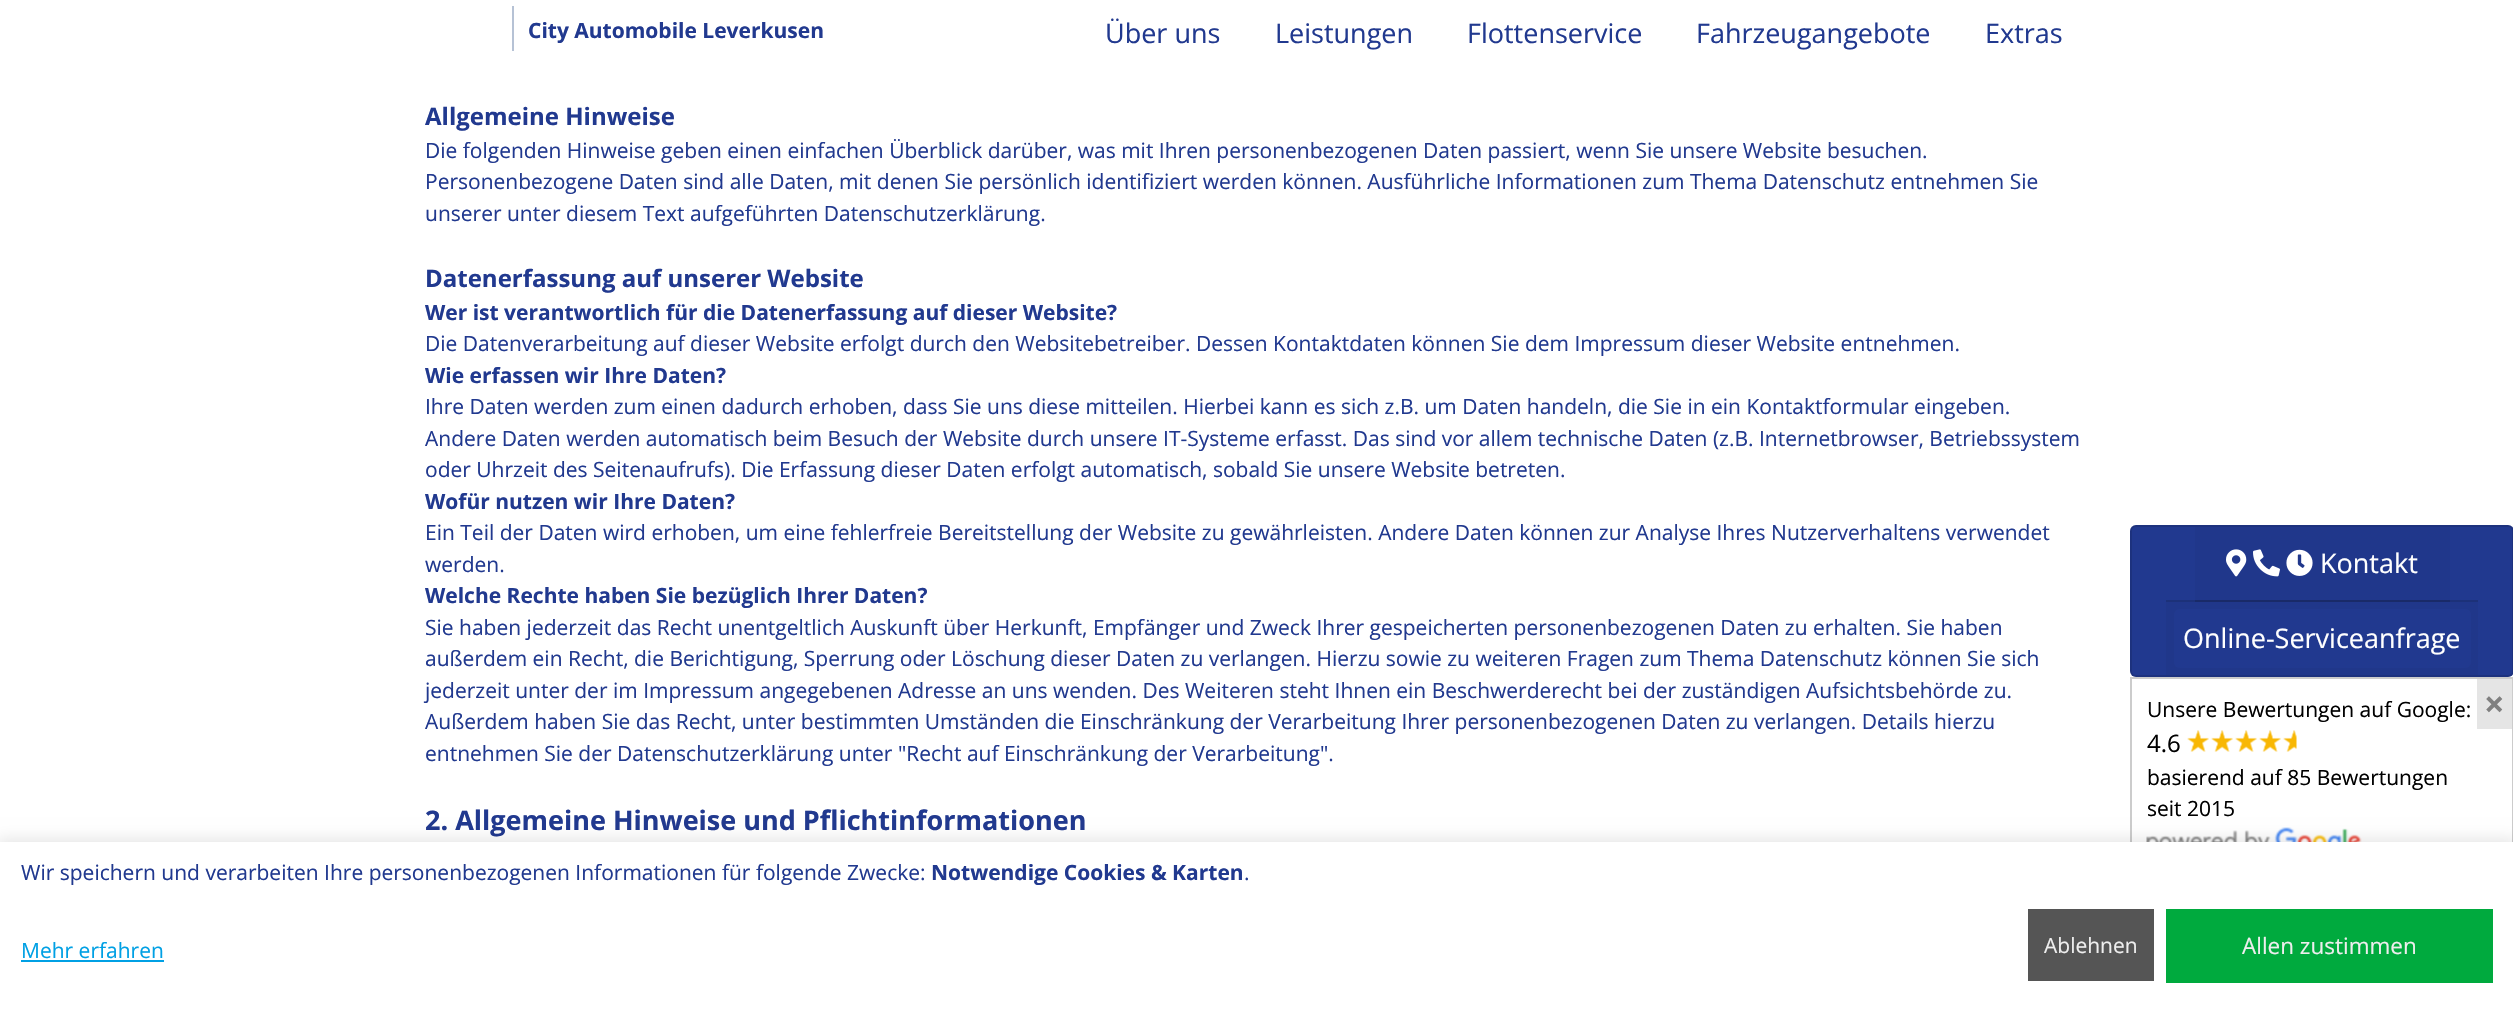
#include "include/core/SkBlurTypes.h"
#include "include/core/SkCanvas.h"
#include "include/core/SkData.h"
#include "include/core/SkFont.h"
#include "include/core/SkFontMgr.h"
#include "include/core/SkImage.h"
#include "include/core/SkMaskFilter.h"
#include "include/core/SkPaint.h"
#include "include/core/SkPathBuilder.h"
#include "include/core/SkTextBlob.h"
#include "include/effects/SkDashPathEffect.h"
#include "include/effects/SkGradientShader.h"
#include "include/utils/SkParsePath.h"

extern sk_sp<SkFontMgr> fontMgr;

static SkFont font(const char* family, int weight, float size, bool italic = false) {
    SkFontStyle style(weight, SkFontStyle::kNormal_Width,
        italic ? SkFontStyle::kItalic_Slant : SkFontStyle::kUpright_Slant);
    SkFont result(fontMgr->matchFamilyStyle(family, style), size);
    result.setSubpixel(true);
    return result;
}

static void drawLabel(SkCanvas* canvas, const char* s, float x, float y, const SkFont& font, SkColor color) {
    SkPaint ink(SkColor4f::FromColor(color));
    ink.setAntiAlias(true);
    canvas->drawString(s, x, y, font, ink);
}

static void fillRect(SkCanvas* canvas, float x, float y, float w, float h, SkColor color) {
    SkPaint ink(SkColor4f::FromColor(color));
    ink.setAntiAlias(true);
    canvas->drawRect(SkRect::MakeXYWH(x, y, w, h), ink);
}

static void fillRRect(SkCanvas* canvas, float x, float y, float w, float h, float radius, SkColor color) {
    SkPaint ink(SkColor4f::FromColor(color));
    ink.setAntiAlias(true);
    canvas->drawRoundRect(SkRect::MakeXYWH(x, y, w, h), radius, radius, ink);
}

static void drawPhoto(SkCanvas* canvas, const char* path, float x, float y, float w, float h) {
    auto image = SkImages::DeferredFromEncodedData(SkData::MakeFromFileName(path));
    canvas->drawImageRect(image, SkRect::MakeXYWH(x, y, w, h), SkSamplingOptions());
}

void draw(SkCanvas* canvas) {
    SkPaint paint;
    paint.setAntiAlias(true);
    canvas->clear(0xFFFFFFFF);
    fillRect(canvas, 512, 6, 2, 45, 0xFFB6C2D5);
    SkFont font1 = font("Open Sans", 700, 21);
    drawLabel(canvas, "City Automobile Leverkusen", 528, 38, font1, 0xFF21398F);
    SkFont font2 = font("Open Sans", 400, 27);
    drawLabel(canvas, "Über uns", 1105, 43, font2, 0xFF21398F);
    drawLabel(canvas, "Leistungen", 1275, 43, font2, 0xFF21398F);
    drawLabel(canvas, "Flottenservice", 1467, 43, font2, 0xFF21398F);
    drawLabel(canvas, "Fahrzeugangebote", 1696, 43, font2, 0xFF21398F);
    drawLabel(canvas, "Extras", 1985, 43, font2, 0xFF21398F);
    SkFont font3 = font("Open Sans", 700, 24);
    drawLabel(canvas, "Allgemeine Hinweise", 425, 125, font3, 0xFF21398F);
    SkFont font4 = font("Open Sans", 400, 21);
    drawLabel(canvas, "Die folgenden Hinweise geben einen einfachen Überblick darüber, was mit Ihren personenbezogenen Daten passiert, wenn Sie unsere Website besuchen.", 425, 158, font4, 0xFF21398F);
    drawLabel(canvas, "Personenbezogene Daten sind alle Daten, mit denen Sie persönlich identifiziert werden können. Ausführliche Informationen zum Thema Datenschutz entnehmen Sie", 425, 189, font4, 0xFF21398F);
    drawLabel(canvas, "unserer unter diesem Text aufgeführten Datenschutzerklärung.", 425, 221, font4, 0xFF21398F);
    drawLabel(canvas, "Datenerfassung auf unserer Website", 425, 287, font3, 0xFF21398F);
    drawLabel(canvas, "Wer ist verantwortlich für die Datenerfassung auf dieser Website?", 425, 320, font1, 0xFF21398F);
    drawLabel(canvas, "Die Datenverarbeitung auf dieser Website erfolgt durch den Websitebetreiber. Dessen Kontaktdaten können Sie dem Impressum dieser Website entnehmen.", 425, 351, font4, 0xFF21398F);
    drawLabel(canvas, "Wie erfassen wir Ihre Daten?", 425, 383, font1, 0xFF21398F);
    drawLabel(canvas, "Ihre Daten werden zum einen dadurch erhoben, dass Sie uns diese mitteilen. Hierbei kann es sich z.B. um Daten handeln, die Sie in ein Kontaktformular eingeben.", 425, 414, font4, 0xFF21398F);
    drawLabel(canvas, "Andere Daten werden automatisch beim Besuch der Website durch unsere IT-Systeme erfasst. Das sind vor allem technische Daten (z.B. Internetbrowser, Betriebssystem", 425, 446, font4, 0xFF21398F);
    drawLabel(canvas, "oder Uhrzeit des Seitenaufrufs). Die Erfassung dieser Daten erfolgt automatisch, sobald Sie unsere Website betreten.", 425, 477, font4, 0xFF21398F);
    drawLabel(canvas, "Wofür nutzen wir Ihre Daten?", 425, 509, font1, 0xFF21398F);
    drawLabel(canvas, "Ein Teil der Daten wird erhoben, um eine fehlerfreie Bereitstellung der Website zu gewährleisten. Andere Daten können zur Analyse Ihres Nutzerverhaltens verwendet", 425, 540, font4, 0xFF21398F);
    drawLabel(canvas, "werden.", 425, 572, font4, 0xFF21398F);
    drawLabel(canvas, "Welche Rechte haben Sie bezüglich Ihrer Daten?", 425, 603, font1, 0xFF21398F);
    drawLabel(canvas, "Sie haben jederzeit das Recht unentgeltlich Auskunft über Herkunft, Empfänger und Zweck Ihrer gespeicherten personenbezogenen Daten zu erhalten. Sie haben", 425, 635, font4, 0xFF21398F);
    drawLabel(canvas, "außerdem ein Recht, die Berichtigung, Sperrung oder Löschung dieser Daten zu verlangen. Hierzu sowie zu weiteren Fragen zum Thema Datenschutz können Sie sich", 425, 666, font4, 0xFF21398F);
    drawLabel(canvas, "jederzeit unter der im Impressum angegebenen Adresse an uns wenden. Des Weiteren steht Ihnen ein Beschwerderecht bei der zuständigen Aufsichtsbehörde zu.", 425, 698, font4, 0xFF21398F);
    drawLabel(canvas, "Außerdem haben Sie das Recht, unter bestimmten Umständen die Einschränkung der Verarbeitung Ihrer personenbezogenen Daten zu verlangen. Details hierzu", 425, 729, font4, 0xFF21398F);
    drawLabel(canvas, "entnehmen Sie der Datenschutzerklärung unter \"Recht auf Einschränkung der Verarbeitung\".", 425, 761, font4, 0xFF21398F);
    SkFont font5 = font("Open Sans", 700, 27);
    drawLabel(canvas, "2. Allgemeine Hinweise und Pflichtinformationen", 425, 830, font5, 0xFF21398F);
    fillRRect(canvas, 2130, 525, 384, 152, 6, 0xFF21398F);
    paint.setStroke(true);
    paint.setStrokeWidth(2);
    paint.setColor(0x1F000000);
    canvas->drawRoundRect(SkRect::MakeXYWH(2131, 526, 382, 150), 5, 5, paint);
    fillRect(canvas, 2195, 527, 255, 73, 0xFF20378B);
    fillRect(canvas, 2195, 600, 255, 2, 0xFF1C307A);
    drawPhoto(canvas, "assets/img1.png", 2226, 549, 21, 28);
    drawPhoto(canvas, "assets/img2.png", 2253, 549, 27, 28);
    drawPhoto(canvas, "assets/img3.png", 2286, 549, 27, 27);
    drawLabel(canvas, "Kontakt", 2320, 573, font2, 0xFFFFFFFF);
    fillRect(canvas, 2166, 600, 312, 75, 0x08000000);
    fillRect(canvas, 2166, 600, 312, 2, 0x1F000000);
    fillRRect(canvas, 2174, 609, 297, 59, 6, 0xFF21398F);
    drawLabel(canvas, "Online-Serviceanfrage", 2183, 648, font2, 0xFFFFFFFF);
    paint.setColor(0xFFCCCCCC);
    canvas->drawRect(SkRect::MakeXYWH(2131, 678, 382, 193), paint);
    drawLabel(canvas, "Unsere Bewertungen auf Google:", 2147, 717, font4, 0xFF000000);
    fillRect(canvas, 2477, 679, 35, 50, 0x80CCCCCC);
    SkFont font6 = font("Open Sans", 700, 36);
    drawLabel(canvas, "×", 2484, 717, font6, 0xFF808080);
    SkFont font7 = font("Open Sans", 400, 24);
    drawLabel(canvas, "4.6", 2147, 752, font7, 0xFF000000);
    drawPhoto(canvas, "assets/img4.png", 2187, 730, 110, 22);
    drawLabel(canvas, "basierend auf 85 Bewertungen", 2147, 785, font4, 0xFF000000);
    drawLabel(canvas, "seit 2015", 2147, 816, font4, 0xFF000000);
    drawPhoto(canvas, "assets/img5.png", 2146, 827, 216, 15);
    paint.setStroke(false);
    paint.setColor(0x1A000000);
    paint.setMaskFilter(SkMaskFilter::MakeBlur(kNormal_SkBlurStyle, 7.5f));
    canvas->drawRect(SkRect::MakeXYWH(-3, 839, 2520, 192), paint);
    paint.setMaskFilter(nullptr);
    fillRect(canvas, 0, 842, 2513, 185, 0xFFFFFFFF);
    drawLabel(canvas, "Wir speichern und verarbeiten Ihre personenbezogenen Informationen für folgende Zwecke:", 21, 880, font4, 0xFF21398F);
    drawLabel(canvas, "Notwendige Cookies & Karten", 931, 880, font1, 0xFF21398F);
    drawLabel(canvas, ".", 1244, 880, font4, 0xFF21398F);
    drawLabel(canvas, "Mehr erfahren", 21, 958, font4, 0xFF00A0E4);
    fillRect(canvas, 21, 960, 143, 2, 0xFF00A0E4);
    fillRect(canvas, 2028, 909, 126, 72, 0xFF555555);
    drawLabel(canvas, "Ablehnen", 2044, 953, font4, 0xFFEEEEEE);
    fillRect(canvas, 2166, 909, 327, 74, 0xFF00AA3E);
    SkFont font8 = font("Open Sans", 400, 22.5f);
    drawLabel(canvas, "Allen zustimmen", 2242, 954, font8, 0xFFEEEEEE);
}
